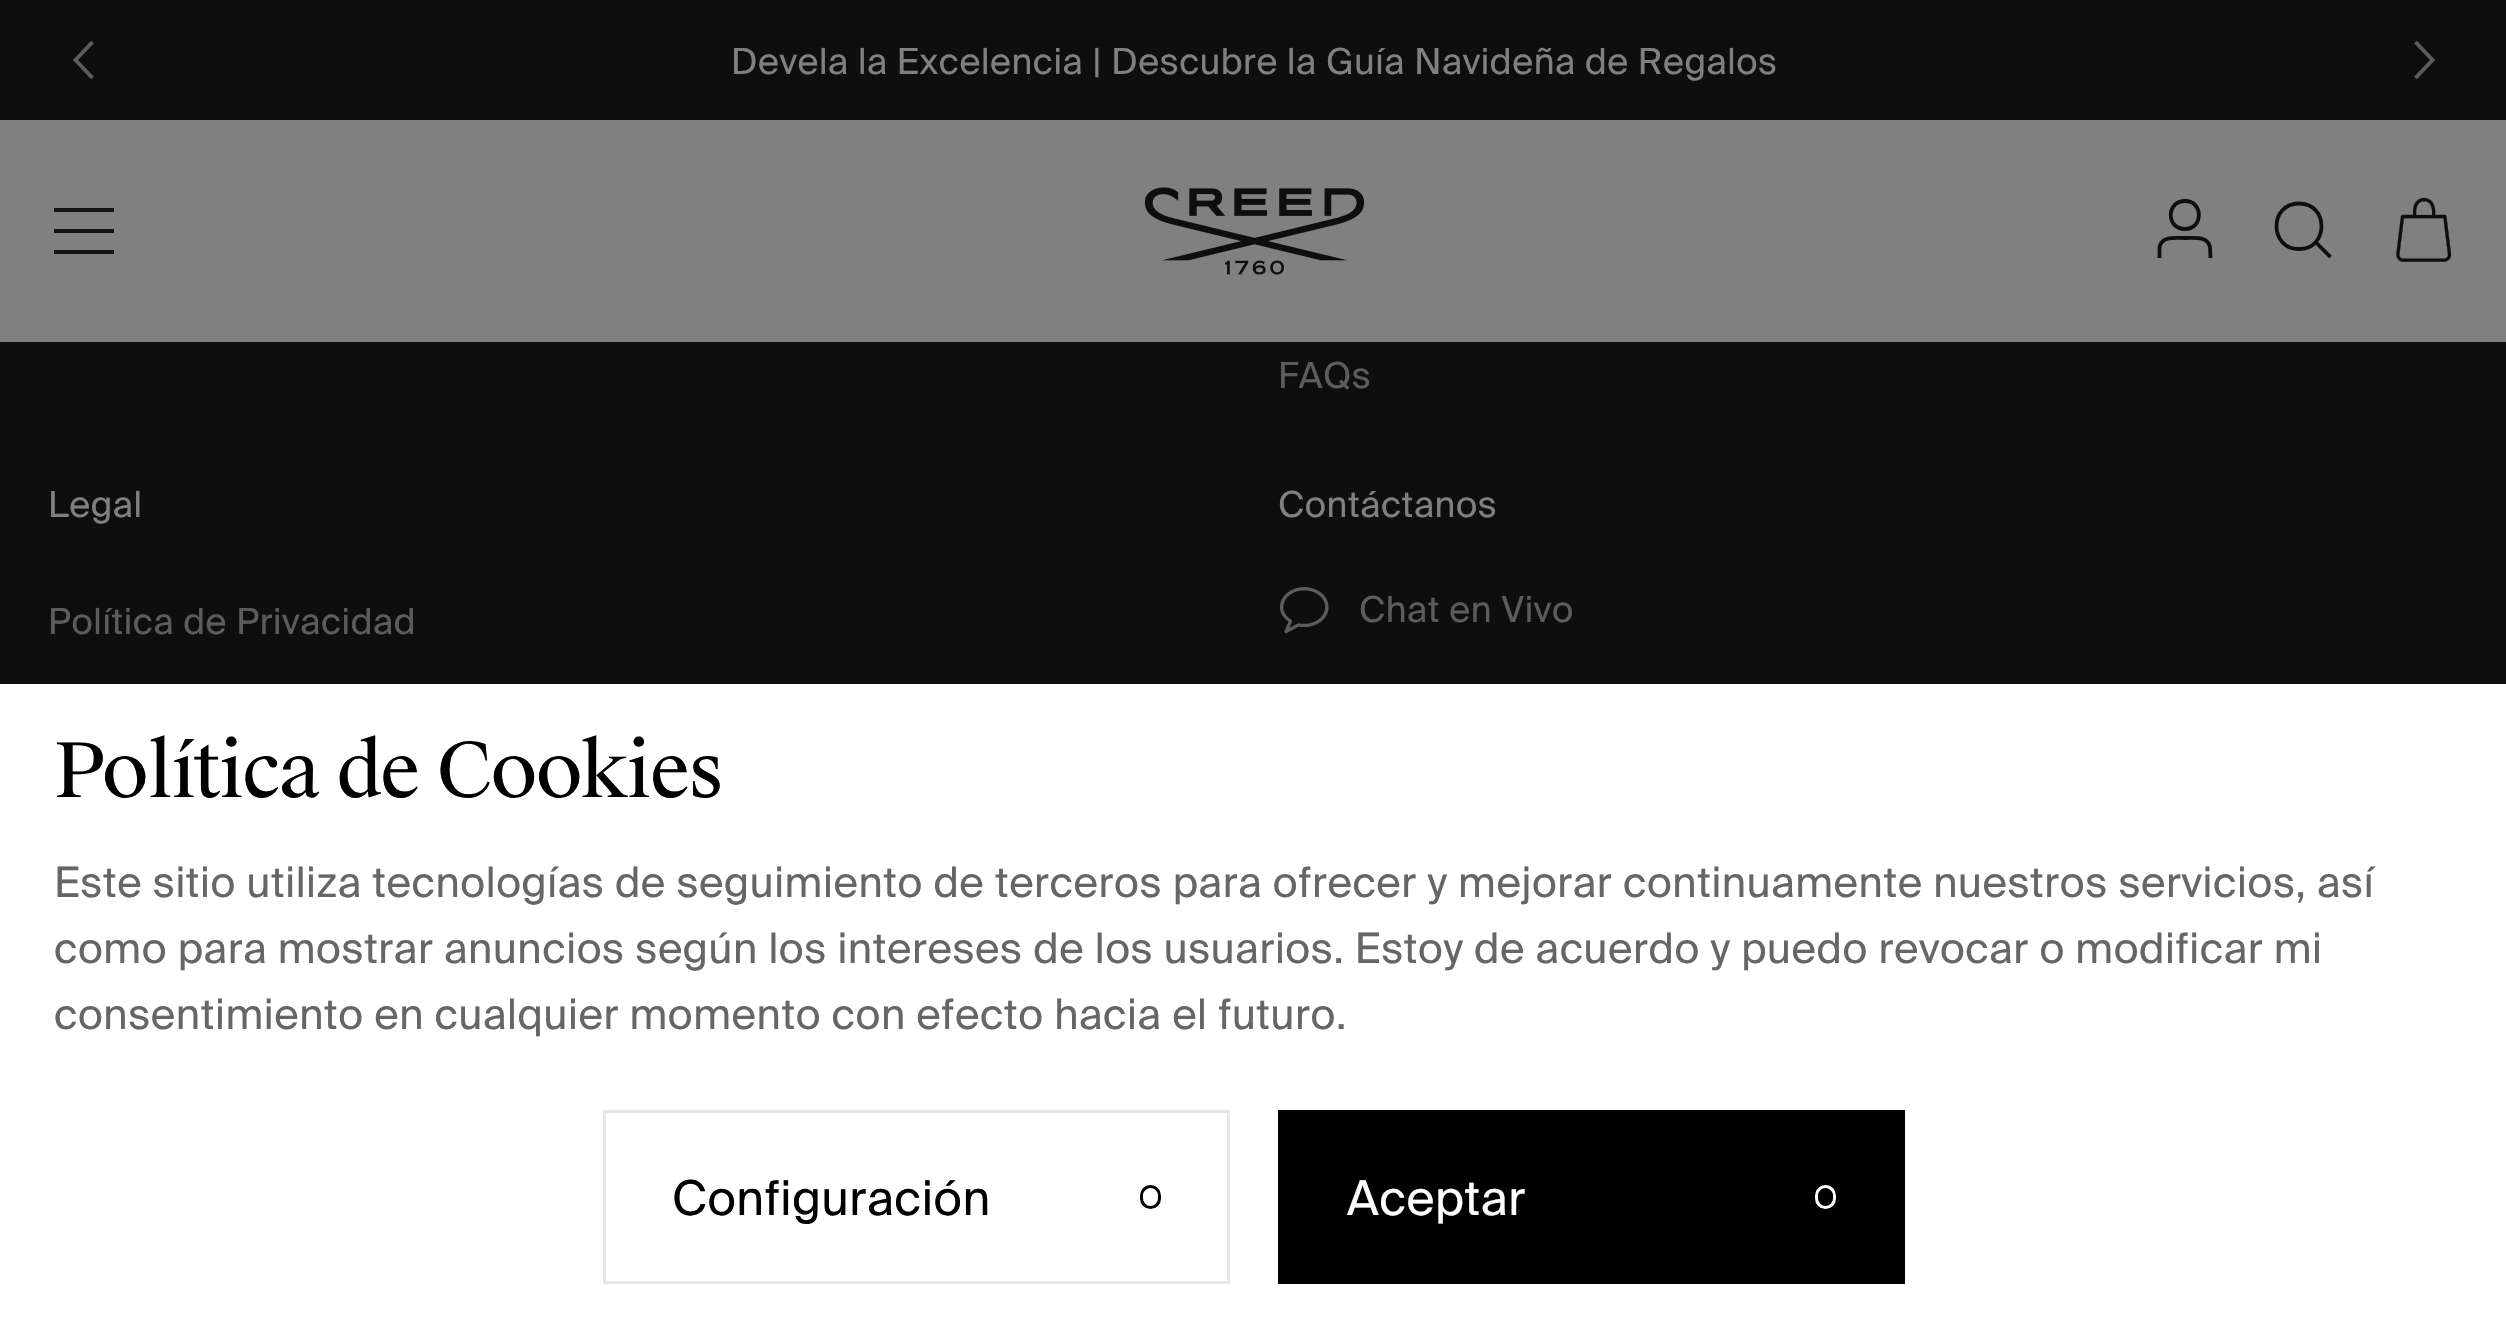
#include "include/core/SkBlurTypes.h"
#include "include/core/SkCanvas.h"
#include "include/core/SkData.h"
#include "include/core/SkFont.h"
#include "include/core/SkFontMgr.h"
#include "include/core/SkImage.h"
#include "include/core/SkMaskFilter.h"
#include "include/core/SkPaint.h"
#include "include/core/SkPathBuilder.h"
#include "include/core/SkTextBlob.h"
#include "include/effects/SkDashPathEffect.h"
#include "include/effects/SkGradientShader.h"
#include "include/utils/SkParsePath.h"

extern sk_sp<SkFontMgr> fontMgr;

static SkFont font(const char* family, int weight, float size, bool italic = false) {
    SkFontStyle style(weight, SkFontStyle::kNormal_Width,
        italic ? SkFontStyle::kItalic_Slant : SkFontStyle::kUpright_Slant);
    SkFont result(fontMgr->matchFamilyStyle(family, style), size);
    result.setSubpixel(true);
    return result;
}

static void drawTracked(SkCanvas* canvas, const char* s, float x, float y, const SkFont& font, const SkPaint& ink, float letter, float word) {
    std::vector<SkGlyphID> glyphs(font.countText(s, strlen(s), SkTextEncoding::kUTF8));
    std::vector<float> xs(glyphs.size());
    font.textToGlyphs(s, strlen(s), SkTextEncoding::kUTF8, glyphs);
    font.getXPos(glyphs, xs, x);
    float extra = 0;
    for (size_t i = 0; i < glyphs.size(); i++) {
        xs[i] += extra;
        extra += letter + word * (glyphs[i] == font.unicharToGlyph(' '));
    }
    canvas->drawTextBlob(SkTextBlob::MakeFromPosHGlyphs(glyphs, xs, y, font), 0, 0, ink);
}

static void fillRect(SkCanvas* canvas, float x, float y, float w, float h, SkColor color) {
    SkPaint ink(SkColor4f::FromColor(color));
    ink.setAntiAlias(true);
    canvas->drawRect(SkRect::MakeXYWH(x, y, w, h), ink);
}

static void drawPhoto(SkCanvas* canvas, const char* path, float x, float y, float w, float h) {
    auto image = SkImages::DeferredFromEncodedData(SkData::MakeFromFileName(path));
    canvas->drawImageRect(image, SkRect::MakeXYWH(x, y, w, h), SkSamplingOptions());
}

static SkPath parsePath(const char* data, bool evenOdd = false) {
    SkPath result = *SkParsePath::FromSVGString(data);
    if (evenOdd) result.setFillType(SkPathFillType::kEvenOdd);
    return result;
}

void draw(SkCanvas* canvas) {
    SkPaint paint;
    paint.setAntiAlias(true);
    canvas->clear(0xFF0E0E0E);
    paint.setStroke(true);
    paint.setStrokeWidth(3.8f);
    paint.setColor(0xFF5C5C5C);
    canvas->drawPath(parsePath("M92.5 42L75.5 60L92.5 78"), paint);
    SkFont font1 = font("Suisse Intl", 400, 36);
    paint.setStroke(false);
    paint.setColor(0xFF808080);
    drawTracked(canvas, "Devela la Excelencia | Descubre la Guía Navideña de Regalos", 731, 74, font1, paint, 0.6f, 0);
    paint.setStroke(true);
    paint.setColor(0xFF5C5C5C);
    canvas->drawPath(parsePath("M2415.5 42L2432.5 60L2415.5 78"), paint);
    fillRect(canvas, 0, 120, 2506, 222, 0xFF808080);
    fillRect(canvas, 54, 208, 60, 4, 0xFF141414);
    fillRect(canvas, 54, 229, 60, 4, 0xFF141414);
    fillRect(canvas, 54, 250, 60, 4, 0xFF141414);
    drawPhoto(canvas, "assets/img1.png", 1144, 187, 221, 88);
    paint.setColor(0xFF0E0E0E);
    canvas->drawPath(parsePath("M2185 229C2203.5 229 2203.5 201 2185 201C2166 201 2166 229 2185 229ZM2159.5 258V247C2162 235.5 2176 238 2185 238C2193.5 238 2207.5 235.5 2210 247L2210.5 258"), paint);
    canvas->drawPath(parsePath("M2299 249C2329 249 2329 203.5 2299 203.5C2269 203.5 2269 249 2299 249ZM2316 242.5L2330.5 257"), paint);
    drawPhoto(canvas, "assets/img2.png", 2396, 197, 56, 65);
    paint.setStroke(false);
    paint.setColor(0xFF5C5C5C);
    drawTracked(canvas, "FAQs", 1278, 388, font1, paint, 0.6f, 0);
    paint.setColor(0xFF808080);
    drawTracked(canvas, "Legal", 48, 517, font1, paint, 0.6f, 0);
    paint.setColor(0xFF5C5C5C);
    drawTracked(canvas, "Política de Privacidad", 48, 634, font1, paint, 0.6f, 0);
    paint.setColor(0xFF808080);
    drawTracked(canvas, "Contáctanos", 1278, 517, font1, paint, 0.6f, 0);
    drawPhoto(canvas, "assets/img3.png", 1280, 587, 49, 47);
    paint.setColor(0xFF5C5C5C);
    drawTracked(canvas, "Chat en Vivo", 1359, 622, font1, paint, 0.6f, 0);
    fillRect(canvas, 0, 684, 2506, 659, 0xFFFFFFFF);
    SkFont font2 = font("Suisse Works", 400, 75);
    paint.setColor(0xFF000000);
    drawTracked(canvas, "Política de Cookies", 54, 797, font2, paint, -1.5f, 0);
    SkFont font3 = font("Suisse Intl", 400, 42);
    paint.setColor(0xFF666666);
    drawTracked(canvas, "Este sitio utiliza tecnologías de seguimiento de terceros para ofrecer y mejorar continuamente nuestros servicios, así", 54, 897, font3, paint, 0.6f, 0);
    drawTracked(canvas, "como para mostrar anuncios según los intereses de los usuarios. Estoy de acuerdo y puedo revocar o modificar mi", 54, 963, font3, paint, 0.6f, 0);
    drawTracked(canvas, "consentimiento en cualquier momento con efecto hacia el futuro.", 54, 1029, font3, paint, 0.6f, 0);
    paint.setStroke(true);
    paint.setStrokeWidth(3);
    paint.setColor(0xFFE7E7E7);
    canvas->drawRect(SkRect::MakeXYWH(604.5f, 1111.5f, 624, 171), paint);
    SkFont font4 = font("Suisse Intl", 400, 48);
    paint.setStroke(false);
    paint.setColor(0xFF000000);
    drawTracked(canvas, "Configuración", 672, 1215, font4, paint, 0.6f, 0);
    paint.setStroke(true);
    canvas->drawRoundRect(SkRect::MakeXYWH(1141.5f, 1186.5f, 18, 21), 9, 9, paint);
    fillRect(canvas, 1278, 1110, 627, 174, 0xFF000000);
    paint.setStroke(false);
    paint.setColor(0xFFFFFFFF);
    drawTracked(canvas, "Aceptar", 1347, 1215, font4, paint, 0.6f, 0);
    paint.setStroke(true);
    canvas->drawRoundRect(SkRect::MakeXYWH(1816.5f, 1186.5f, 18, 21), 9, 9, paint);
}
